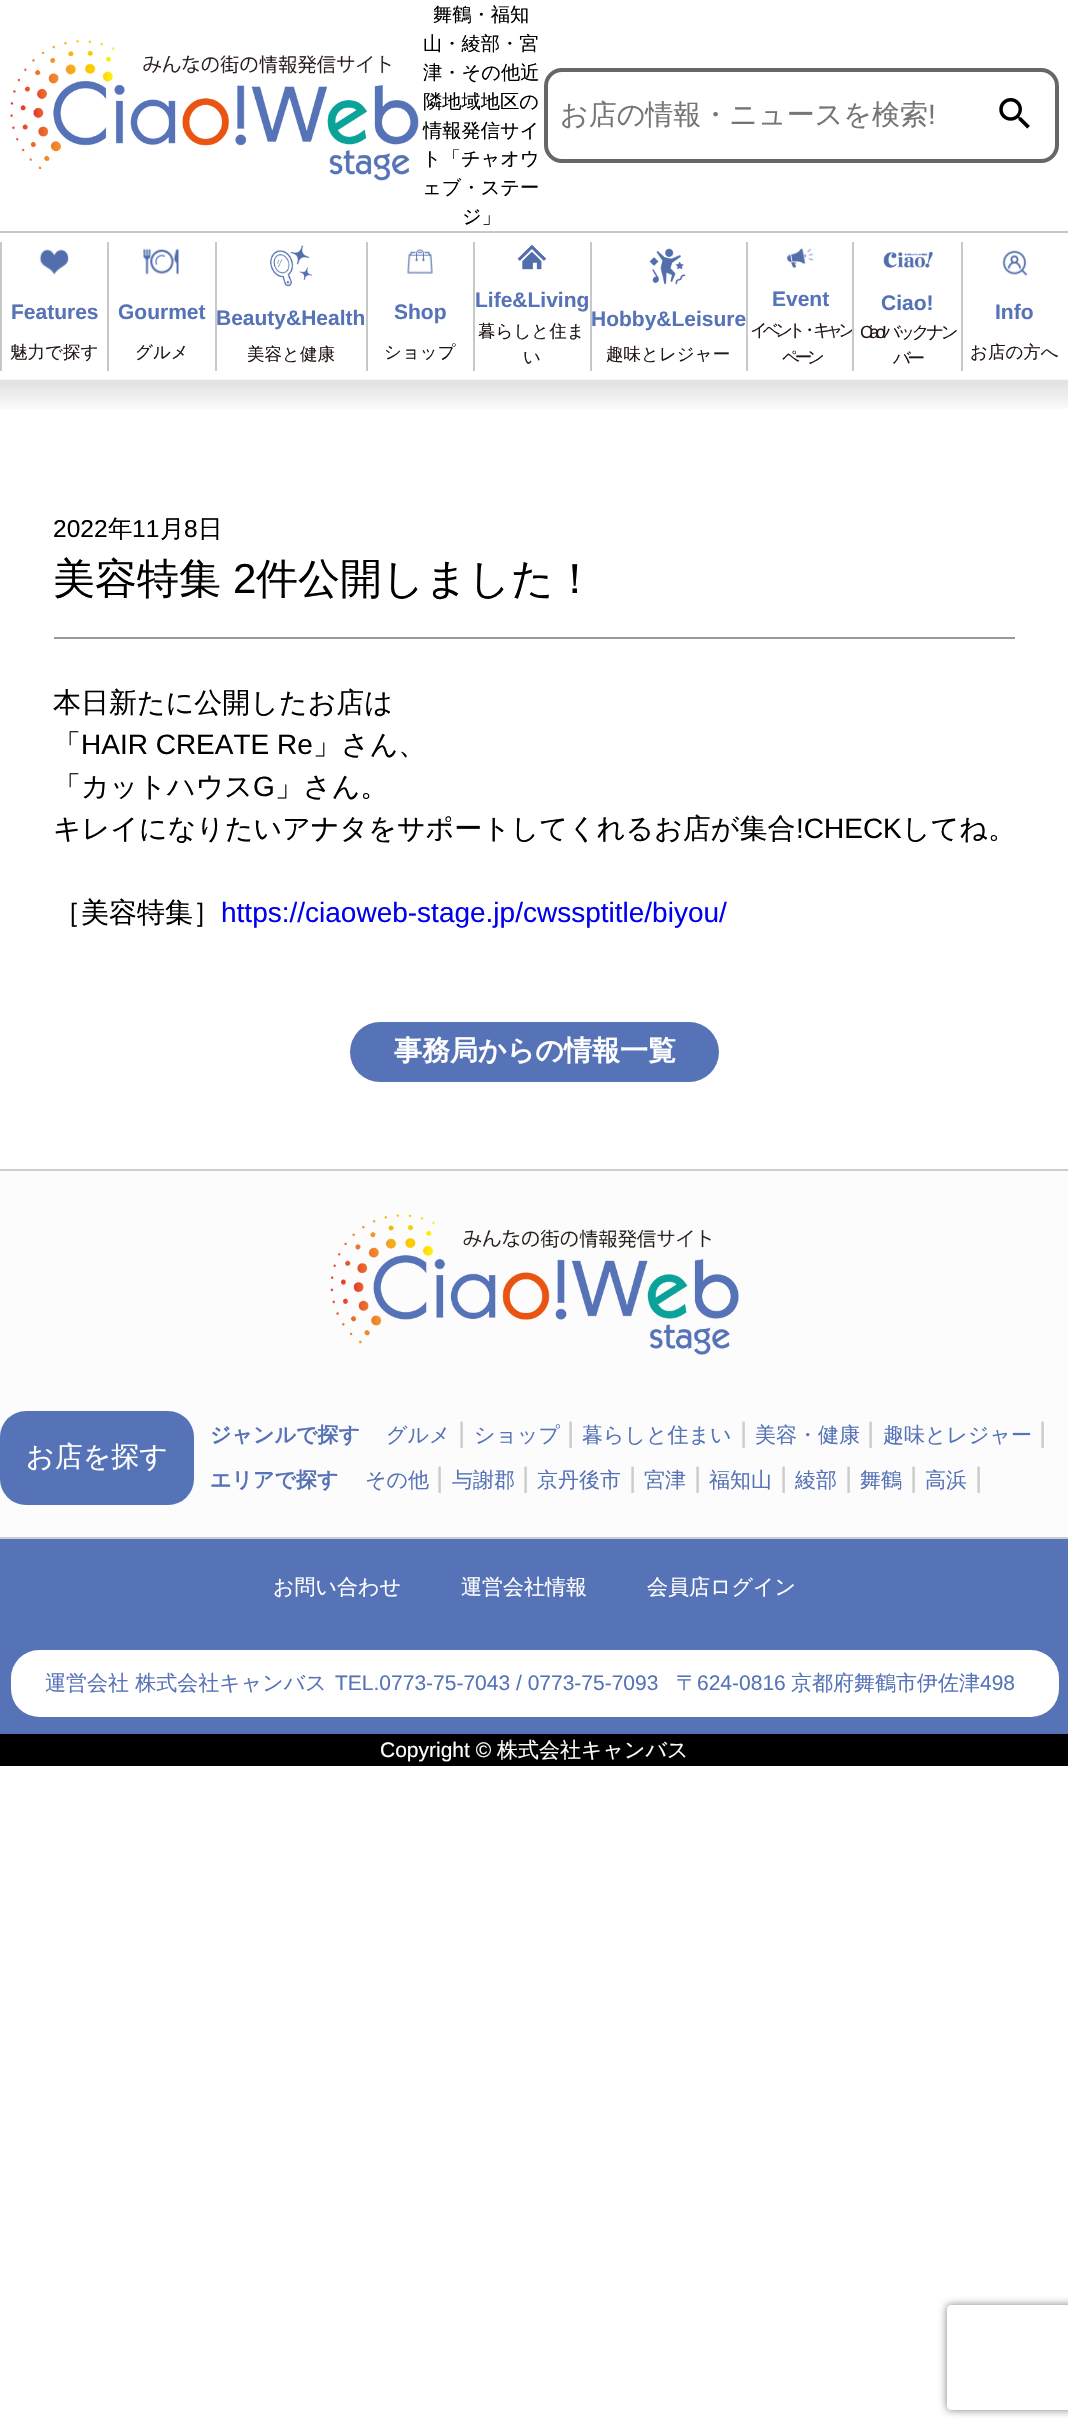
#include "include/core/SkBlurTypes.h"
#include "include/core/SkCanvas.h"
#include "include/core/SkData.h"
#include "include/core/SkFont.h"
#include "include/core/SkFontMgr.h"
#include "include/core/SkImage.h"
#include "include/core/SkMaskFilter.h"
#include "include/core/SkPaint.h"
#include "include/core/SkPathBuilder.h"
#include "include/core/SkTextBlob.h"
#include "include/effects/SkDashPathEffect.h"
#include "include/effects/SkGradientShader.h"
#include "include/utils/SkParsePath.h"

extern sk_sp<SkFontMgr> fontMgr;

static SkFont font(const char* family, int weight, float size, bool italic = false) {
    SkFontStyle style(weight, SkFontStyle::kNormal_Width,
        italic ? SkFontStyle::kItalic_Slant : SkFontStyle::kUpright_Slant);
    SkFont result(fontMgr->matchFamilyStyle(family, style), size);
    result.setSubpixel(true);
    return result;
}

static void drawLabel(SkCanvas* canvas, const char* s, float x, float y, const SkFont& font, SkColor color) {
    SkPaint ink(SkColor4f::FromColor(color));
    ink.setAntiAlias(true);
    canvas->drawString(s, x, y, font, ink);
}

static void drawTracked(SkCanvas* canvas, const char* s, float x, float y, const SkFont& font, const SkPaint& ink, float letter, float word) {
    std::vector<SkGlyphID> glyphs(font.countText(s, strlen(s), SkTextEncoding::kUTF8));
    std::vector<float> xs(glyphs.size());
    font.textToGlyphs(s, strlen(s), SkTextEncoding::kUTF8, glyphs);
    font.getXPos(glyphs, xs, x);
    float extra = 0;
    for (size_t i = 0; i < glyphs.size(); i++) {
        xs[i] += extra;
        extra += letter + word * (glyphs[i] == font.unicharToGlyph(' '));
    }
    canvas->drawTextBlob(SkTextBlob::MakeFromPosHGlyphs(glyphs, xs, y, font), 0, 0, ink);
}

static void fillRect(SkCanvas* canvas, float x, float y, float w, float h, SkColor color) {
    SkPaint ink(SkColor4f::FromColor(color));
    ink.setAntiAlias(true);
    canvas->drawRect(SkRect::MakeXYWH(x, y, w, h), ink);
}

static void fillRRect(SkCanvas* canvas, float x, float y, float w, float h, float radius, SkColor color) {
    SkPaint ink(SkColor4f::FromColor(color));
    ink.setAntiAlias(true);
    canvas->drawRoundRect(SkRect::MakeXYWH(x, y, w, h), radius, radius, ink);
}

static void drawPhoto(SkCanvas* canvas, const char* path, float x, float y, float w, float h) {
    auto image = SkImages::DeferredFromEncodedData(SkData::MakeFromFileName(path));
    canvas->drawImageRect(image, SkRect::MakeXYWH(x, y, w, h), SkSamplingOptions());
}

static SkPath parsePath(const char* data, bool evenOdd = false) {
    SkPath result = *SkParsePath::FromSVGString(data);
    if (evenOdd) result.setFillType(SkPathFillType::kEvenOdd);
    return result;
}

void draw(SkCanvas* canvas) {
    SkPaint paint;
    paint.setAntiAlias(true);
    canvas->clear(0xFFFFFFFF);
    drawPhoto(canvas, "assets/img1.png", 10, 40, 409, 141);
    SkFont font1 = font("WenQuanYi Zen Hei", 500, 19.25f);
    drawLabel(canvas, "舞鶴・福知", 433, 21, font1, 0xFF000000);
    drawLabel(canvas, "山・綾部・宮", 423, 50, font1, 0xFF000000);
    drawLabel(canvas, "津・その他近", 423, 79, font1, 0xFF000000);
    drawLabel(canvas, "隣地域地区の", 423, 108, font1, 0xFF000000);
    drawLabel(canvas, "情報発信サイ", 423, 137, font1, 0xFF000000);
    drawLabel(canvas, "ト「チャオウ", 422, 165, font1, 0xFF000000);
    drawLabel(canvas, "ェブ・ステー", 422, 194, font1, 0xFF000000);
    drawLabel(canvas, "ジ」", 462, 223, font1, 0xFF000000);
    paint.setStroke(true);
    paint.setStrokeWidth(4);
    paint.setColor(0xFF666666);
    canvas->drawRoundRect(SkRect::MakeXYWH(546, 70, 511, 91), 16, 16, paint);
    SkFont font2 = font("WenQuanYi Zen Hei", 500, 28);
    drawLabel(canvas, "お店の情報・ニュースを検索", 560, 124, font2, 0xFF757575);
    SkFont font3 = font("Liberation Sans", 400, 28);
    drawLabel(canvas, "!", 928, 124, font3, 0xFF757575);
    drawPhoto(canvas, "assets/img2.png", 999, 98, 31, 31);
    fillRect(canvas, 0, 231, 1068, 2, 0xFFC8C8C8);
    fillRect(canvas, 0, 242, 2, 129, 0xFFC8C8C8);
    drawPhoto(canvas, "assets/img3.png", 39, 249, 30, 26);
    SkFont font4 = font("Liberation Sans", 700, 21);
    drawLabel(canvas, "Features", 11, 319, font4, 0xFF5673B7);
    SkFont font5 = font("WenQuanYi Zen Hei", 500, 17.5f);
    drawLabel(canvas, "魅力で探す", 10, 358, font5, 0xFF231815);
    fillRect(canvas, 107, 242, 2, 129, 0xFFC8C8C8);
    drawPhoto(canvas, "assets/img4.png", 143, 248, 36, 27);
    drawLabel(canvas, "Gourmet", 118, 319, font4, 0xFF5673B7);
    drawLabel(canvas, "グルメ", 135, 358, font5, 0xFF231815);
    fillRect(canvas, 215, 242, 2, 129, 0xFFC8C8C8);
    drawPhoto(canvas, "assets/img5.png", 270, 245, 43, 42);
    drawLabel(canvas, "Beauty&Health", 216, 325, font4, 0xFF5673B7);
    drawLabel(canvas, "美容と健康", 247, 360, font5, 0xFF231815);
    fillRect(canvas, 366, 242, 2, 129, 0xFFC8C8C8);
    drawPhoto(canvas, "assets/img6.png", 407, 248, 26, 26);
    drawLabel(canvas, "Shop", 394, 319, font4, 0xFF5673B7);
    drawLabel(canvas, "ショップ", 384, 358, font5, 0xFF231815);
    fillRect(canvas, 473, 242, 2, 129, 0xFFC8C8C8);
    drawPhoto(canvas, "assets/img7.png", 517, 244, 30, 26);
    drawLabel(canvas, "Life&Living", 475, 307, font4, 0xFF5673B7);
    drawLabel(canvas, "暮らしと住ま", 478, 337, font5, 0xFF231815);
    drawLabel(canvas, "い", 523, 363, font5, 0xFF231815);
    fillRect(canvas, 590, 242, 2, 129, 0xFFC8C8C8);
    drawPhoto(canvas, "assets/img8.png", 649, 248, 37, 37);
    drawLabel(canvas, "Hobby&Leisure", 591, 326, font4, 0xFF5673B7);
    drawLabel(canvas, "趣味とレジャー", 606, 360, font5, 0xFF231815);
    fillRect(canvas, 746, 242, 2, 129, 0xFFC8C8C8);
    drawPhoto(canvas, "assets/img9.png", 787, 248, 27, 20);
    drawLabel(canvas, "Event", 772, 306, font4, 0xFF5673B7);
    paint.setStroke(false);
    paint.setColor(0xFF231815);
    drawTracked(canvas, "イベント・キャン", 750, 336, font5, paint, -5.25f, 0);
    drawTracked(canvas, "ペーン", 782, 363, font5, paint, -5.25f, 0);
    fillRect(canvas, 852, 242, 2, 129, 0xFFC8C8C8);
    drawPhoto(canvas, "assets/img10.png", 883, 251, 50, 17);
    drawLabel(canvas, "Ciao!", 881, 310, font4, 0xFF5673B7);
    SkFont font6 = font("Liberation Sans", 400, 17.5f);
    drawTracked(canvas, "Ciao!", 860, 338, font6, paint, -3.5f, 0);
    drawTracked(canvas, "バックナン", 883, 338, font5, paint, -3.5f, 0);
    drawTracked(canvas, "バー", 893, 364, font5, paint, -3.5f, 0);
    fillRect(canvas, 961, 242, 2, 129, 0xFFC8C8C8);
    drawPhoto(canvas, "assets/img11.png", 1002, 250, 26, 26);
    drawLabel(canvas, "Info", 995, 319, font4, 0xFF5673B7);
    drawLabel(canvas, "お店の方へ", 970, 358, font5, 0xFF231815);
    drawPhoto(canvas, "assets/img12.png", 0, 379, 1068, 30);
    fillRect(canvas, 54, 637, 961, 2, 0xFF999999);
    SkFont font7 = font("Liberation Sans", 400, 24.5f);
    drawLabel(canvas, "2022", 53, 537, font7, 0xFF000000);
    SkFont font8 = font("WenQuanYi Zen Hei", 500, 24.5f);
    drawLabel(canvas, "年", 108, 537, font8, 0xFF000000);
    drawLabel(canvas, "11", 132, 537, font7, 0xFF000000);
    drawLabel(canvas, "月", 160, 537, font8, 0xFF000000);
    drawLabel(canvas, "8", 184, 537, font7, 0xFF000000);
    drawLabel(canvas, "日", 198, 537, font8, 0xFF000000);
    SkFont font9 = font("WenQuanYi Zen Hei", 500, 42);
    drawLabel(canvas, "美容特集", 53, 593, font9, 0xFF000000);
    SkFont font10 = font("Liberation Sans", 400, 42);
    drawLabel(canvas, "2", 233, 593, font10, 0xFF000000);
    drawLabel(canvas, "件公開しました！", 256, 593, font9, 0xFF000000);
    drawLabel(canvas, "本日新たに公開したお店は", 53, 712, font2, 0xFF000000);
    drawLabel(canvas, "「", 53, 754, font2, 0xFF000000);
    drawLabel(canvas, "HAIR CREATE Re", 81, 754, font3, 0xFF000000);
    drawLabel(canvas, "」さん、", 313, 754, font2, 0xFF000000);
    drawLabel(canvas, "「カットハウス", 53, 796, font2, 0xFF000000);
    drawLabel(canvas, "G", 253, 796, font3, 0xFF000000);
    drawLabel(canvas, "」さん。", 275, 796, font2, 0xFF000000);
    drawLabel(canvas, "キレイになりたいアナタをサポートしてくれるお店が集合", 53, 838, font2, 0xFF000000);
    drawLabel(canvas, "!CHECK", 796, 838, font3, 0xFF000000);
    drawLabel(canvas, "してね。", 902, 838, font2, 0xFF000000);
    drawLabel(canvas, "［美容特集］", 53, 922, font2, 0xFF000000);
    drawLabel(canvas, "https://ciaoweb-stage.jp/cwssptitle/biyou/", 221, 922, font3, 0xFF0000EE);
    fillRRect(canvas, 350, 1022, 369, 60, 30, 0xFF5673B7);
    SkFont font11 = font("WenQuanYi Zen Hei", 700, 28);
    drawLabel(canvas, "事務局からの情報一覧", 394, 1060, font11, 0xFFFFFFFF);
    fillRect(canvas, 0, 1171, 1068, 366, 0xFFFCFCFC);
    fillRect(canvas, 0, 1169, 1068, 2, 0xFFCCCCCC);
    drawPhoto(canvas, "assets/img13.png", 330, 1214, 409, 141);
    SkFont font12 = font("WenQuanYi Zen Hei", 700, 21);
    drawLabel(canvas, "ジャンルで探す", 210, 1442, font12, 0xFF5673B7);
    SkFont font13 = font("WenQuanYi Zen Hei", 500, 21);
    drawLabel(canvas, "グルメ", 386, 1442, font13, 0xFF5673B7);
    drawLabel(canvas, "|", 458, 1442, font3, 0xFFCCCCCC);
    drawLabel(canvas, "ショップ", 474, 1442, font13, 0xFF5673B7);
    drawLabel(canvas, "|", 567, 1442, font3, 0xFFCCCCCC);
    drawLabel(canvas, "暮らしと住まい", 582, 1442, font13, 0xFF5673B7);
    drawLabel(canvas, "|", 740, 1442, font3, 0xFFCCCCCC);
    drawLabel(canvas, "美容・健康", 755, 1442, font13, 0xFF5673B7);
    drawLabel(canvas, "|", 867, 1442, font3, 0xFFCCCCCC);
    drawLabel(canvas, "趣味とレジャー", 883, 1442, font13, 0xFF5673B7);
    drawLabel(canvas, "|", 1039, 1442, font3, 0xFFCCCCCC);
    fillRRect(canvas, 0, 1411, 194, 94, 26, 0xFF5673B7);
    drawLabel(canvas, "お店を探す", 26, 1466, font2, 0xFFFFFFFF);
    drawLabel(canvas, "エリアで探す", 210, 1487, font12, 0xFF5673B7);
    drawLabel(canvas, "その他", 365, 1487, font13, 0xFF5673B7);
    drawLabel(canvas, "|", 436, 1487, font3, 0xFFCCCCCC);
    drawLabel(canvas, "与謝郡", 452, 1487, font13, 0xFF5673B7);
    drawLabel(canvas, "|", 522, 1487, font3, 0xFFCCCCCC);
    drawLabel(canvas, "京丹後市", 537, 1487, font13, 0xFF5673B7);
    drawLabel(canvas, "|", 629, 1487, font3, 0xFFCCCCCC);
    drawLabel(canvas, "宮津", 644, 1487, font13, 0xFF5673B7);
    drawLabel(canvas, "|", 694, 1487, font3, 0xFFCCCCCC);
    drawLabel(canvas, "福知山", 709, 1487, font13, 0xFF5673B7);
    drawLabel(canvas, "|", 780, 1487, font3, 0xFFCCCCCC);
    drawLabel(canvas, "綾部", 795, 1487, font13, 0xFF5673B7);
    drawLabel(canvas, "|", 845, 1487, font3, 0xFFCCCCCC);
    drawLabel(canvas, "舞鶴", 860, 1487, font13, 0xFF5673B7);
    drawLabel(canvas, "|", 910, 1487, font3, 0xFFCCCCCC);
    drawLabel(canvas, "高浜", 925, 1487, font13, 0xFF5673B7);
    drawLabel(canvas, "|", 975, 1487, font3, 0xFFCCCCCC);
    fillRect(canvas, 0, 1539, 1068, 195, 0xFF5673B7);
    fillRect(canvas, 0, 1537, 1068, 2, 0xFFCCCCCC);
    drawLabel(canvas, "お問い合わせ", 273, 1594, font13, 0xFFFFFFFF);
    drawLabel(canvas, "運営会社情報", 461, 1594, font13, 0xFFFFFFFF);
    drawLabel(canvas, "会員店ログイン", 647, 1594, font13, 0xFFFFFFFF);
    fillRRect(canvas, 11, 1650, 1048, 67, 28, 0xFFFFFFFF);
    drawLabel(canvas, "運営会社 株式会社キャンバス", 45, 1690, font13, 0xFF5673B7);
    SkFont font14 = font("Liberation Sans", 400, 21);
    drawLabel(canvas, "TEL.0773-75-7043 / 0773-75-7093", 335, 1690, font14, 0xFF5673B7);
    drawLabel(canvas, "〒", 676, 1690, font13, 0xFF5673B7);
    drawLabel(canvas, "624-0816", 697, 1690, font14, 0xFF5673B7);
    drawLabel(canvas, "京都府舞鶴市伊佐津", 791, 1690, font13, 0xFF5673B7);
    drawLabel(canvas, "498", 980, 1690, font14, 0xFF5673B7);
    fillRect(canvas, 0, 1734, 1068, 32, 0xFF000000);
    drawLabel(canvas, "Copyright ©", 380, 1757, font14, 0xFFFFFFFF);
    drawLabel(canvas, "株式会社キャンバス", 497, 1757, font13, 0xFFFFFFFF);
    canvas->save();
    canvas->clipPath(parsePath("M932 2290H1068V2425H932ZM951 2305H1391C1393 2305 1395 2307 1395 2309V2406C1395 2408 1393 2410 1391 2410H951C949 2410 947 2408 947 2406V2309C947 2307 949 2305 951 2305Z", true), true);
    paint.setColor(0xFF808080);
    paint.setMaskFilter(SkMaskFilter::MakeBlur(kNormal_SkBlurStyle, 4.5f));
    canvas->drawRoundRect(SkRect::MakeXYWH(947, 2305, 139, 105), 4, 4, paint);
    paint.setMaskFilter(nullptr);
    canvas->restore();
}
